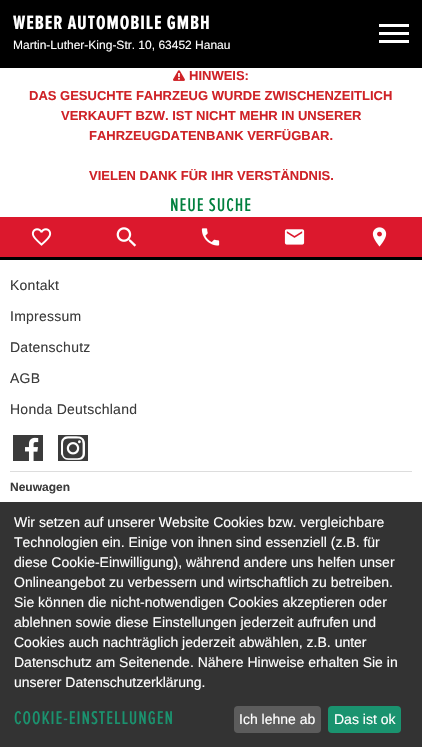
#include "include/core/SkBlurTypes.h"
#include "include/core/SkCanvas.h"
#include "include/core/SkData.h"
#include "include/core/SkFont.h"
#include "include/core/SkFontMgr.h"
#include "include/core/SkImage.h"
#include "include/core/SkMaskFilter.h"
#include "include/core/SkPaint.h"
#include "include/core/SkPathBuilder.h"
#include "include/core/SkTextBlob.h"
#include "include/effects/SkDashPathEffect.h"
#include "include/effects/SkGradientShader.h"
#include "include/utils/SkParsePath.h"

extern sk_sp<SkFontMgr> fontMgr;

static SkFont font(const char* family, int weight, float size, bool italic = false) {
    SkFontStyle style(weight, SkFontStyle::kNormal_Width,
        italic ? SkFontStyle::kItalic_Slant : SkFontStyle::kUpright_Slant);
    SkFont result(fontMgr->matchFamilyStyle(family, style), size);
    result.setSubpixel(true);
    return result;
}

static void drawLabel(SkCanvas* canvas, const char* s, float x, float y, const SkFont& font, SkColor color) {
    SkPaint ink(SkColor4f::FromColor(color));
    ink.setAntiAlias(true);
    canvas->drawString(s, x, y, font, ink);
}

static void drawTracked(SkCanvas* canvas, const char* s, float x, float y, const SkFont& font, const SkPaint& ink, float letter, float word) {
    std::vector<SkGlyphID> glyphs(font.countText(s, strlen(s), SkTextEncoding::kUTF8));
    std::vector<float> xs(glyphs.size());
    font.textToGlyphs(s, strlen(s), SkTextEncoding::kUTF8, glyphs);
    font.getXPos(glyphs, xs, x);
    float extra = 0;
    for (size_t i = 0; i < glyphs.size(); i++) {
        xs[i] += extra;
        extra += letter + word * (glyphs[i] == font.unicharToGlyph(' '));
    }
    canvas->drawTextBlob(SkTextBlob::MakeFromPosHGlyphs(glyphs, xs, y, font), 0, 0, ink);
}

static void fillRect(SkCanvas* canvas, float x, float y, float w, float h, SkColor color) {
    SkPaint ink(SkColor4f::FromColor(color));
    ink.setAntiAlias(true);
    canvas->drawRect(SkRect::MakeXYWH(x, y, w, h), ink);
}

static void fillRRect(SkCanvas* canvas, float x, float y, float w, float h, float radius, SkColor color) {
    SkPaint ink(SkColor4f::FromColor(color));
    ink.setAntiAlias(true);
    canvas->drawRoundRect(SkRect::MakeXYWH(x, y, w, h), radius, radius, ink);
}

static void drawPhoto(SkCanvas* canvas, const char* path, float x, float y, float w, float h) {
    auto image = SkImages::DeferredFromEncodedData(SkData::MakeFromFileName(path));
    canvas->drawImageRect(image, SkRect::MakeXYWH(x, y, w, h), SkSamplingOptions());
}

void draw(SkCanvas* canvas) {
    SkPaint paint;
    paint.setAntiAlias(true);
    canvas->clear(0xFFFFFFFF);
    fillRect(canvas, 0, 0, 422, 68, 0xFF000000);
    SkFont font1 = font("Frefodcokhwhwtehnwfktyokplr", 700, 20);
    paint.setColor(0xFFFFFFFF);
    drawTracked(canvas, "WEBER AUTOMOBILE GMBH", 13, 29, font1, paint, 0.95f, 0);
    SkFont font2 = font("Liberation Sans", 400, 12);
    drawLabel(canvas, "Martin-Luther-King-Str. 10, 63452 Hanau", 13, 49, font2, 0xFFFFFFFF);
    fillRect(canvas, 379, 32, 30, 3, 0xFFFFFFFF);
    fillRect(canvas, 379, 24, 30, 3, 0xFFFFFFFF);
    fillRect(canvas, 379, 40, 30, 3, 0xFFFFFFFF);
    drawPhoto(canvas, "assets/img1.png", 173, 70, 12, 11);
    SkFont font3 = font("Liberation Sans", 700, 13);
    drawLabel(canvas, "HINWEIS:", 189, 80, font3, 0xFFCF2227);
    drawLabel(canvas, "DAS GESUCHTE FAHRZEUG WURDE ZWISCHENZEITLICH", 29, 100, font3, 0xFFCF2227);
    drawLabel(canvas, "VERKAUFT BZW. IST NICHT MEHR IN UNSERER", 61, 120, font3, 0xFFCF2227);
    drawLabel(canvas, "FAHRZEUGDATENBANK VERFÜGBAR.", 89, 140, font3, 0xFFCF2227);
    drawLabel(canvas, "VIELEN DANK FÜR IHR VERSTÄNDNIS.", 89, 180, font3, 0xFFCF2227);
    SkFont font4 = font("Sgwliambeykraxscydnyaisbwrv", 500, 19);
    paint.setColor(0xFF00803E);
    drawTracked(canvas, "NEUE SUCHE", 170, 211, font4, paint, 0.95f, 0);
    fillRect(canvas, 0, 217, 422, 40, 0xFFDC182D);
    drawPhoto(canvas, "assets/img2.png", 31, 228, 21, 18);
    drawPhoto(canvas, "assets/img3.png", 116, 227, 21, 20);
    drawPhoto(canvas, "assets/img4.png", 201, 228, 19, 18);
    drawPhoto(canvas, "assets/img5.png", 284, 229, 21, 16);
    drawPhoto(canvas, "assets/img6.png", 372, 227, 15, 20);
    fillRect(canvas, 0, 257, 422, 3, 0xFF000000);
    SkFont font5 = font("Liberation Sans", 400, 14);
    paint.setColor(0xFF3B3B3B);
    drawTracked(canvas, "Kontakt", 10, 290, font5, paint, 0.25f, 0);
    drawTracked(canvas, "Impressum", 10, 321, font5, paint, 0.25f, 0);
    drawTracked(canvas, "Datenschutz", 10, 352, font5, paint, 0.25f, 0);
    drawTracked(canvas, "AGB", 10, 383, font5, paint, 0.25f, 0);
    drawTracked(canvas, "Honda Deutschland", 10, 414, font5, paint, 0.25f, 0);
    drawPhoto(canvas, "assets/img7.png", 13, 435, 30, 26);
    drawPhoto(canvas, "assets/img8.png", 58, 435, 30, 26);
    fillRect(canvas, 10, 471, 402, 1, 0xFFDDDDDD);
    SkFont font6 = font("Liberation Sans", 700, 12);
    drawLabel(canvas, "Neuwagen", 10, 491, font6, 0xFF3B3B3B);
    fillRect(canvas, 0, 502, 422, 245, 0xFF333333);
    drawLabel(canvas, "Wir setzen auf unserer Website Cookies bzw. vergleichbare", 14, 527, font5, 0xFFFFFFFF);
    drawLabel(canvas, "Technologien ein. Einige von ihnen sind essenziell (z.B. für", 14, 547, font5, 0xFFFFFFFF);
    drawLabel(canvas, "diese Cookie-Einwilligung), während andere uns helfen unser", 14, 567, font5, 0xFFFFFFFF);
    drawLabel(canvas, "Onlineangebot zu verbessern und wirtschaftlich zu betreiben.", 14, 587, font5, 0xFFFFFFFF);
    drawLabel(canvas, "Sie können die nicht-notwendigen Cookies akzeptieren oder", 14, 607, font5, 0xFFFFFFFF);
    drawLabel(canvas, "ablehnen sowie diese Einstellungen jederzeit aufrufen und", 14, 627, font5, 0xFFFFFFFF);
    drawLabel(canvas, "Cookies auch nachträglich jederzeit abwählen, z.B. unter", 14, 647, font5, 0xFFFFFFFF);
    drawLabel(canvas, "Datenschutz am Seitenende. Nähere Hinweise erhalten Sie in", 14, 667, font5, 0xFFFFFFFF);
    drawLabel(canvas, "unserer Datenschutzerklärung.", 14, 687, font5, 0xFFFFFFFF);
    paint.setColor(0xFF1A936F);
    drawTracked(canvas, "COOKIE-EINSTELLUNGEN", 14, 724, font4, paint, 0.95f, 0);
    fillRRect(canvas, 234, 706, 87, 27, 4, 0xFF5C5C5C);
    drawLabel(canvas, "Ich lehne ab", 239, 724, font5, 0xFFFFFFFF);
    fillRRect(canvas, 328, 706, 73, 27, 4, 0xFF1A936F);
    drawLabel(canvas, "Das ist ok", 334, 724, font5, 0xFFFFFFFF);
}
